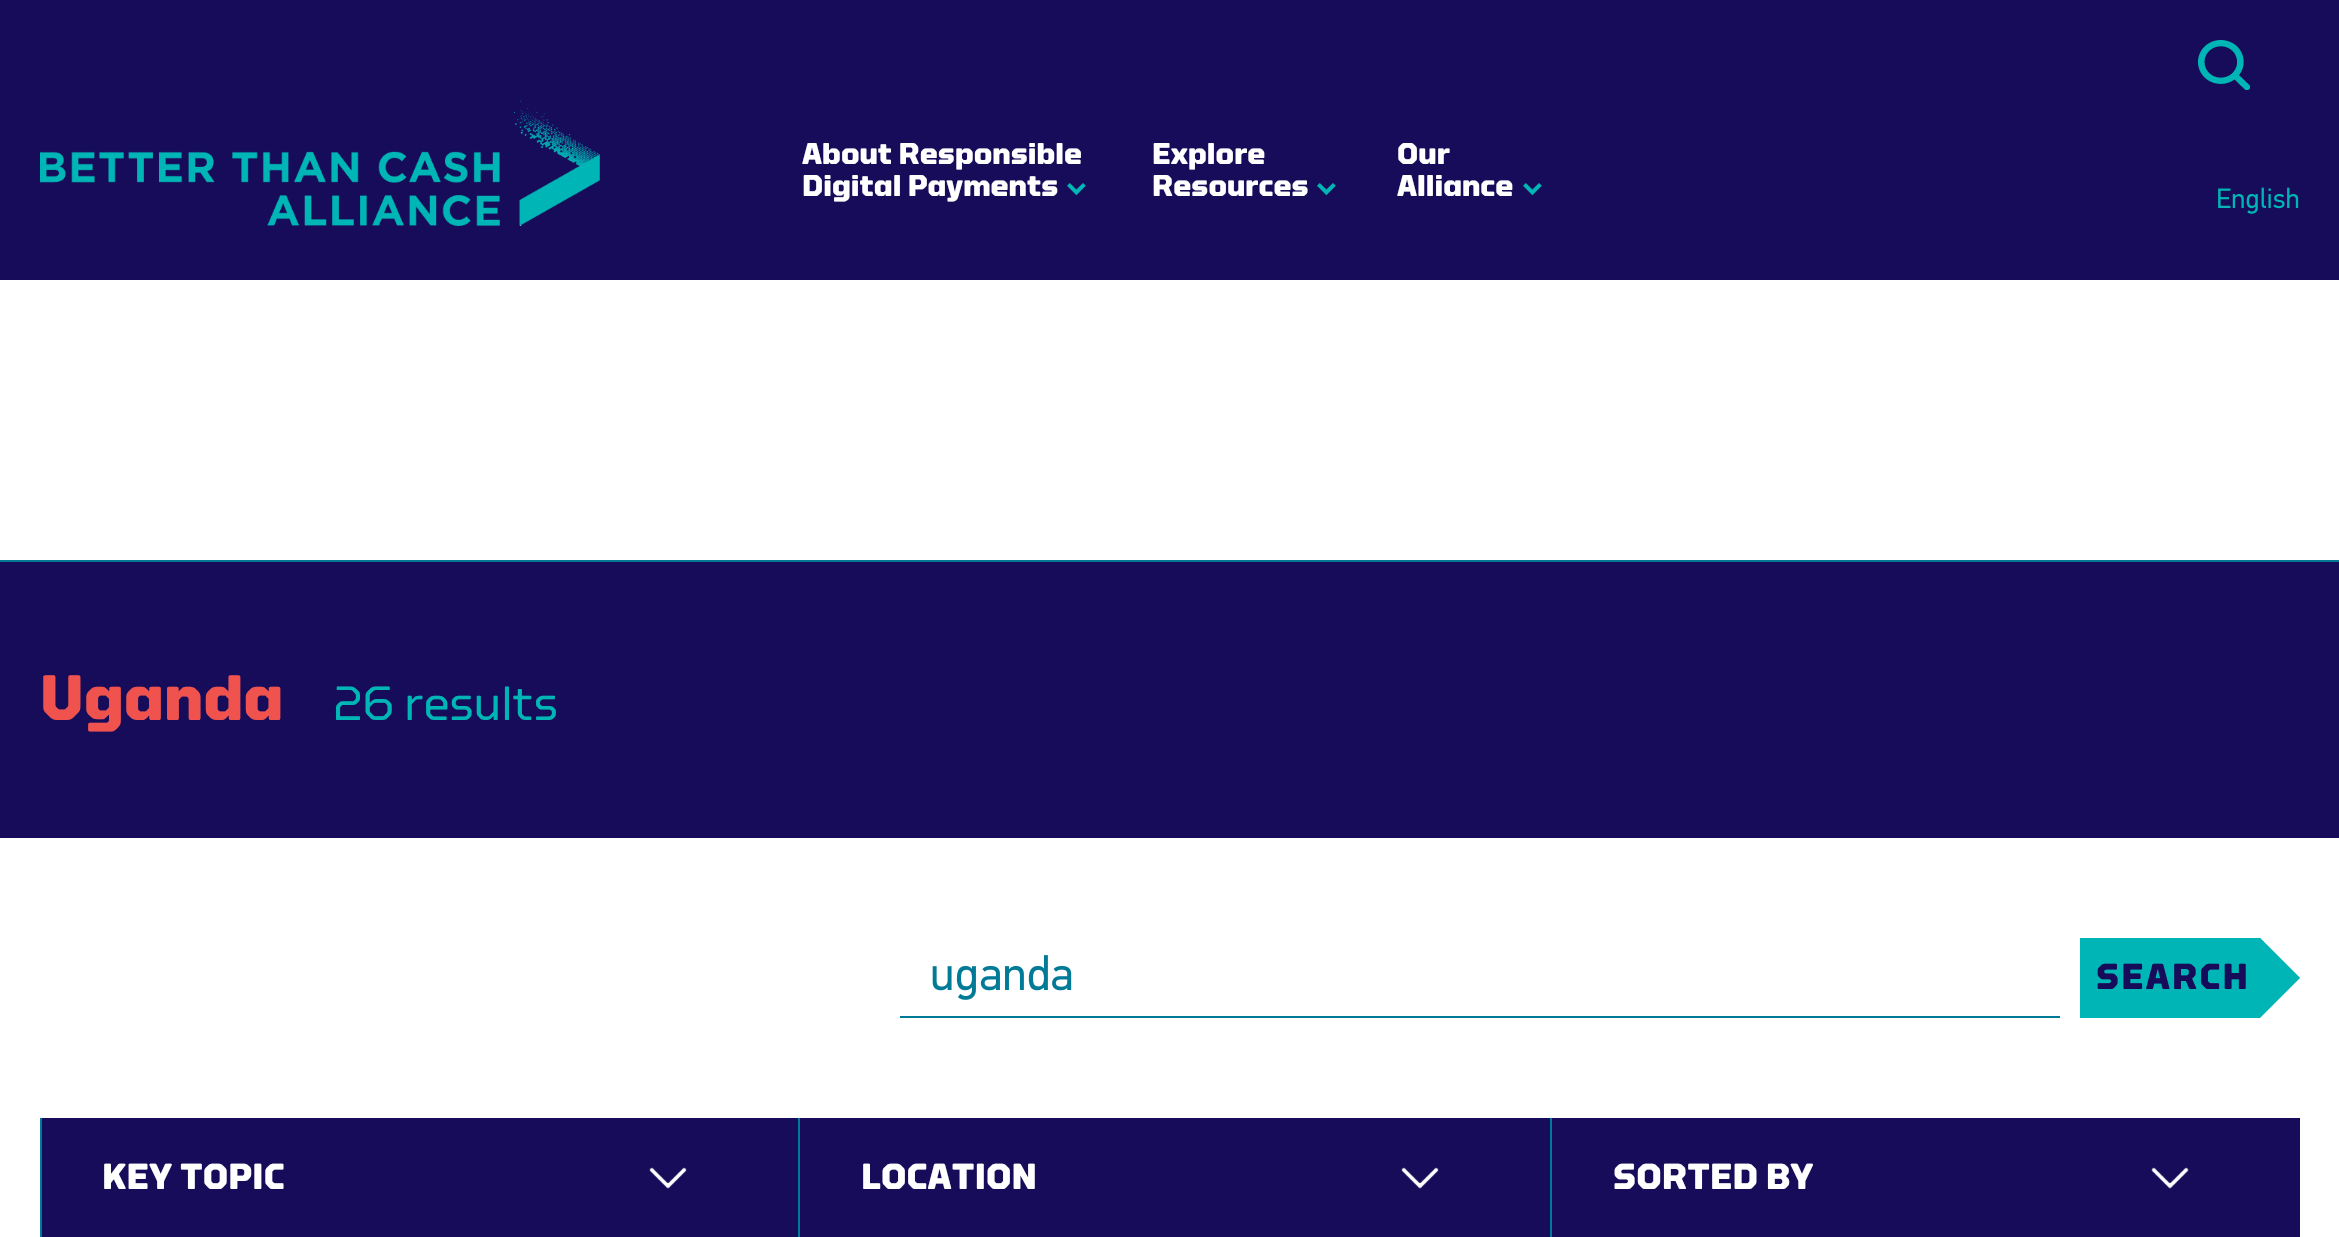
#include "include/core/SkBlurTypes.h"
#include "include/core/SkCanvas.h"
#include "include/core/SkData.h"
#include "include/core/SkFont.h"
#include "include/core/SkFontMgr.h"
#include "include/core/SkImage.h"
#include "include/core/SkMaskFilter.h"
#include "include/core/SkPaint.h"
#include "include/core/SkPathBuilder.h"
#include "include/core/SkTextBlob.h"
#include "include/effects/SkDashPathEffect.h"
#include "include/effects/SkGradientShader.h"
#include "include/utils/SkParsePath.h"

extern sk_sp<SkFontMgr> fontMgr;

static SkFont font(const char* family, int weight, float size, bool italic = false) {
    SkFontStyle style(weight, SkFontStyle::kNormal_Width,
        italic ? SkFontStyle::kItalic_Slant : SkFontStyle::kUpright_Slant);
    SkFont result(fontMgr->matchFamilyStyle(family, style), size);
    result.setSubpixel(true);
    return result;
}

static void drawLabel(SkCanvas* canvas, const char* s, float x, float y, const SkFont& font, SkColor color) {
    SkPaint ink(SkColor4f::FromColor(color));
    ink.setAntiAlias(true);
    canvas->drawString(s, x, y, font, ink);
}

static void drawTracked(SkCanvas* canvas, const char* s, float x, float y, const SkFont& font, const SkPaint& ink, float letter, float word) {
    std::vector<SkGlyphID> glyphs(font.countText(s, strlen(s), SkTextEncoding::kUTF8));
    std::vector<float> xs(glyphs.size());
    font.textToGlyphs(s, strlen(s), SkTextEncoding::kUTF8, glyphs);
    font.getXPos(glyphs, xs, x);
    float extra = 0;
    for (size_t i = 0; i < glyphs.size(); i++) {
        xs[i] += extra;
        extra += letter + word * (glyphs[i] == font.unicharToGlyph(' '));
    }
    canvas->drawTextBlob(SkTextBlob::MakeFromPosHGlyphs(glyphs, xs, y, font), 0, 0, ink);
}

static void fillRect(SkCanvas* canvas, float x, float y, float w, float h, SkColor color) {
    SkPaint ink(SkColor4f::FromColor(color));
    ink.setAntiAlias(true);
    canvas->drawRect(SkRect::MakeXYWH(x, y, w, h), ink);
}

static void drawPhoto(SkCanvas* canvas, const char* path, float x, float y, float w, float h) {
    auto image = SkImages::DeferredFromEncodedData(SkData::MakeFromFileName(path));
    canvas->drawImageRect(image, SkRect::MakeXYWH(x, y, w, h), SkSamplingOptions());
}

static SkPath parsePath(const char* data, bool evenOdd = false) {
    SkPath result = *SkParsePath::FromSVGString(data);
    if (evenOdd) result.setFillType(SkPathFillType::kEvenOdd);
    return result;
}

void draw(SkCanvas* canvas) {
    SkPaint paint;
    paint.setAntiAlias(true);
    canvas->clear(0xFFFFFFFF);
    fillRect(canvas, 0, 0, 2339, 280, 0xFF160C5A);
    drawPhoto(canvas, "assets/img1.png", 40, 100, 560, 126);
    drawPhoto(canvas, "assets/img2.png", 2198, 40, 52, 50);
    SkFont font1 = font("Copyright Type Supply", 700, 30);
    drawLabel(canvas, "About Responsible", 802, 164, font1, 0xFFFFFFFF);
    drawLabel(canvas, "Digital Payments", 802, 196, font1, 0xFFFFFFFF);
    drawPhoto(canvas, "assets/img3.png", 1067, 183, 19, 13);
    drawLabel(canvas, "Explore", 1152, 164, font1, 0xFFFFFFFF);
    drawLabel(canvas, "Resources", 1152, 196, font1, 0xFFFFFFFF);
    drawPhoto(canvas, "assets/img3.png", 1317, 183, 19, 13);
    drawLabel(canvas, "Our", 1397, 164, font1, 0xFFFFFFFF);
    drawLabel(canvas, "Alliance", 1397, 196, font1, 0xFFFFFFFF);
    drawPhoto(canvas, "assets/img3.png", 1523, 183, 19, 13);
    drawPhoto(canvas, "assets/img4.png", 2218, 187, 81, 27);
    fillRect(canvas, 0, 562, 2339, 276, 0xFF160C5A);
    fillRect(canvas, 0, 560, 2339, 2, 0xFF037996);
    SkFont font2 = font("Copyright Type Supply", 700, 64);
    drawLabel(canvas, "Uganda", 40, 720, font2, 0xFFF0534E);
    SkFont font3 = font("Copyright Type Supply", 400, 48);
    drawLabel(canvas, "26 results", 333, 720, font3, 0xFF00B5B5);
    fillRect(canvas, 900, 1016, 1160, 2, 0xFF007A96);
    drawPhoto(canvas, "assets/img5.png", 932, 955, 140, 45);
    fillRect(canvas, 2080, 938, 220, 80, 0xFF00B5B5);
    SkFont font4 = font("Copyright Type Supply", 700, 36);
    paint.setColor(0xFF160C5A);
    drawTracked(canvas, "SEARCH", 2096, 989, font4, paint, 2, 0);
    paint.setColor(0xFFFFFFFF);
    canvas->drawPath(parsePath("M2300 938V978L2260 938Z"), paint);
    paint.setColor(0xFF00B5B5);
    canvas->drawPath(parsePath("M2300 978H2260V938Z"), paint);
    paint.setColor(0xFFFFFFFF);
    canvas->drawPath(parsePath("M2300 978V1018H2260Z"), paint);
    fillRect(canvas, 42, 1118, 756, 119, 0xFF160C5A);
    fillRect(canvas, 40, 1118, 2, 119, 0xFF007A96);
    drawLabel(canvas, "KEY TOPIC", 102, 1189, font4, 0xFFFFFFFF);
    drawPhoto(canvas, "assets/img6.png", 649, 1167, 38, 22);
    fillRect(canvas, 800, 1118, 750, 119, 0xFF160C5A);
    fillRect(canvas, 798, 1118, 2, 119, 0xFF007A96);
    drawLabel(canvas, "LOCATION", 861, 1189, font4, 0xFFFFFFFF);
    drawPhoto(canvas, "assets/img6.png", 1401, 1167, 38, 22);
    fillRect(canvas, 1552, 1118, 748, 119, 0xFF160C5A);
    fillRect(canvas, 1550, 1118, 2, 119, 0xFF007A96);
    drawLabel(canvas, "SORTED BY", 1613, 1189, font4, 0xFFFFFFFF);
    drawPhoto(canvas, "assets/img6.png", 2151, 1167, 38, 22);
}
